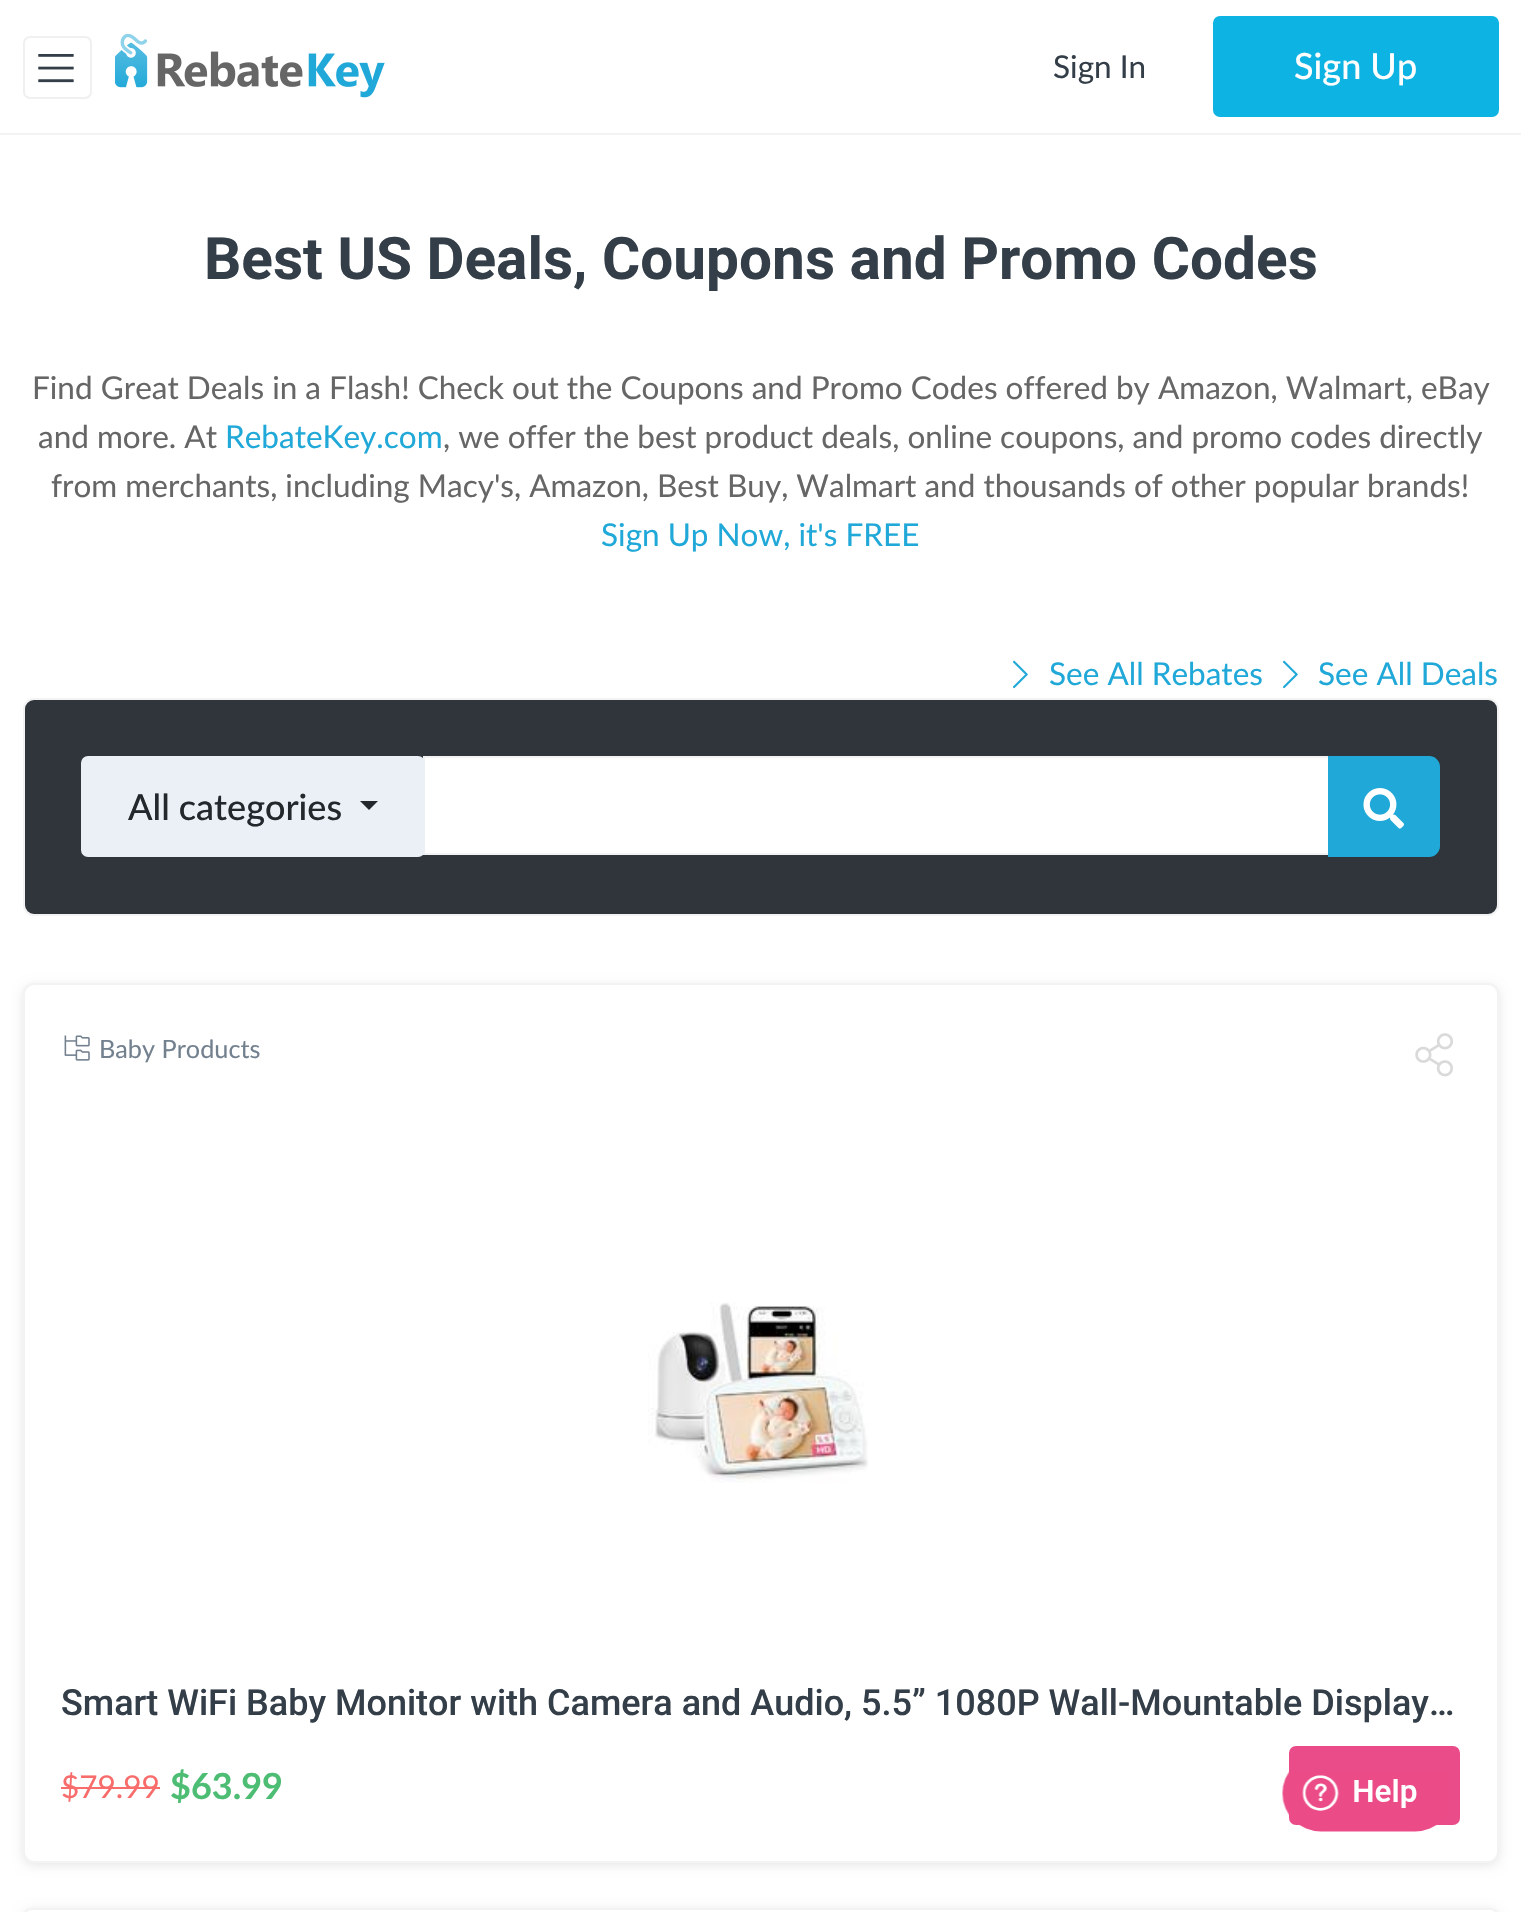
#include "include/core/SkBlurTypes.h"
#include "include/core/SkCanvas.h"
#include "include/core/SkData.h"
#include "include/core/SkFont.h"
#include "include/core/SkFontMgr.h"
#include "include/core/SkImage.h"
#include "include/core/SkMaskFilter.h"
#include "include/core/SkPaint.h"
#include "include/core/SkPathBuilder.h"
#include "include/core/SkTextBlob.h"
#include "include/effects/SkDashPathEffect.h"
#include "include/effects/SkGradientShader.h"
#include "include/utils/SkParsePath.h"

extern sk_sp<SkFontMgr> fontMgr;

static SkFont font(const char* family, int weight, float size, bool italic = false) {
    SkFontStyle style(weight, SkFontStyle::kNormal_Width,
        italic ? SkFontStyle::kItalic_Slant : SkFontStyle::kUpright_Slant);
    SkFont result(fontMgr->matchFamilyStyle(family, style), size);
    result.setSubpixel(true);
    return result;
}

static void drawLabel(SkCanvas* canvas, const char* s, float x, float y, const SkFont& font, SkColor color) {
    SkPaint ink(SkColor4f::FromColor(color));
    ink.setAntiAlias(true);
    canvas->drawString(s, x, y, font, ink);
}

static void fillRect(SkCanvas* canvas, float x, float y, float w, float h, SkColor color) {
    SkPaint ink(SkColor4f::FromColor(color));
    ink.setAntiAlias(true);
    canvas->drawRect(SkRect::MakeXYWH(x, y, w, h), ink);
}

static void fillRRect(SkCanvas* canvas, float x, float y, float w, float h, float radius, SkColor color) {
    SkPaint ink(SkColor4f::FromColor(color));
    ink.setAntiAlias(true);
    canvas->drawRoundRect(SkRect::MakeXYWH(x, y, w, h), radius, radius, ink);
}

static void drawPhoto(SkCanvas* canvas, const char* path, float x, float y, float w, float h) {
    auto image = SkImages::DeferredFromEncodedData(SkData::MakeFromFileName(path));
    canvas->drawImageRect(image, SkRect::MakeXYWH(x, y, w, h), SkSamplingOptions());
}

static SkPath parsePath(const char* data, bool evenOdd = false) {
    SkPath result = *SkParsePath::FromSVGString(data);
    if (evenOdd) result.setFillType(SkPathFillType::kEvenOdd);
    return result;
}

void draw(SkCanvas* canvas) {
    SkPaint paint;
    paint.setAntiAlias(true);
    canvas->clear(0xFFFFFFFF);
    fillRect(canvas, 0, 133, 1521, 2, 0xFFF3F3F3);
    paint.setStroke(true);
    paint.setStrokeWidth(2);
    paint.setColor(0xFFF0F0F0);
    canvas->drawRoundRect(SkRect::MakeXYWH(24, 37, 67, 61), 6, 6, paint);
    drawPhoto(canvas, "assets/img1.png", 38, 54, 36, 29);
    drawPhoto(canvas, "assets/img2.png", 115, 34, 270, 64);
    SkFont font1 = font("Lato", 400, 31.5f);
    drawLabel(canvas, "Sign In", 1053, 78, font1, 0xFF333E48);
    paint.setStroke(false);
    paint.setColor(0xFF0DB3E3);
    canvas->drawRoundRect(SkRect::MakeXYWH(1214, 17, 284, 99), 6, 6, paint);
    paint.setStroke(true);
    canvas->drawRoundRect(SkRect::MakeXYWH(1214, 17, 284, 99), 6, 6, paint);
    SkFont font2 = font("Lato", 500, 36);
    drawLabel(canvas, "Sign Up", 1294, 79, font2, 0xFFFFFFFF);
    SkFont font3 = font("Roboto", 700, 58.5f);
    drawLabel(canvas, "Best US Deals, Coupons and Promo Codes", 204, 279, font3, 0xFF333E48);
    drawLabel(canvas, "Find Great Deals in a Flash! Check out the Coupons and Promo Codes offered by Amazon, Walmart, eBay", 32, 399, font1, 0xFF666666);
    drawLabel(canvas, "and more. At", 38, 448, font1, 0xFF666666);
    drawLabel(canvas, "RebateKey.com", 225, 448, font1, 0xFF20A8D8);
    drawLabel(canvas, ", we offer the best product deals, online coupons, and promo codes directly", 443, 448, font1, 0xFF666666);
    drawLabel(canvas, "from merchants, including Macy's, Amazon, Best Buy, Walmart and thousands of other popular brands!", 51, 497, font1, 0xFF666666);
    drawLabel(canvas, "Sign Up Now, it's FREE", 601, 546, font1, 0xFF20A8D8);
    drawPhoto(canvas, "assets/img3.png", 1012, 660, 16, 29);
    drawLabel(canvas, "See All Rebates", 1049, 685, font1, 0xFF20A8D8);
    drawPhoto(canvas, "assets/img3.png", 1282, 660, 16, 29);
    drawLabel(canvas, "See All Deals", 1318, 685, font1, 0xFF20A8D8);
    paint.setStroke(false);
    paint.setColor(0xFF2F353A);
    canvas->drawRoundRect(SkRect::MakeXYWH(24, 699, 1474, 216), 10, 10, paint);
    paint.setStroke(true);
    paint.setColor(0xFFF3F3F3);
    canvas->drawRoundRect(SkRect::MakeXYWH(24, 699, 1474, 216), 10, 10, paint);
    paint.setStroke(false);
    paint.setColor(0xFFFFFFFF);
    canvas->drawRect(SkRect::MakeXYWH(424, 757, 905, 97), paint);
    paint.setStroke(true);
    paint.setColor(0xFFF3F3F3);
    canvas->drawRect(SkRect::MakeXYWH(424, 757, 905, 97), paint);
    paint.setStroke(false);
    paint.setColor(0xFFEAF0F5);
    canvas->drawRoundRect(SkRect::MakeXYWH(82, 757, 342, 99), 6, 6, paint);
    paint.setStroke(true);
    canvas->drawRoundRect(SkRect::MakeXYWH(82, 757, 342, 99), 6, 6, paint);
    drawLabel(canvas, "All categories", 128, 820, font2, 0xFF23282C);
    paint.setStroke(false);
    paint.setColor(0xFF23282C);
    canvas->drawPath(parsePath("M360 801H378L369 810Z"), paint);
    paint.setColor(0xFF20A8D8);
    canvas->drawPath(parsePath("M1329 757H1429C1434.5 757 1439 761.5 1439 767V846C1439 851.5 1434.5 856 1429 856H1329Z"), paint);
    paint.setStroke(true);
    canvas->drawPath(parsePath("M1329 757H1429C1434.5 757 1439 761.5 1439 767V846C1439 851.5 1434.5 856 1429 856H1329Z"), paint);
    drawPhoto(canvas, "assets/img4.png", 1363, 788, 41, 41);
    paint.setStroke(false);
    paint.setColor(0x1A000000);
    paint.setMaskFilter(SkMaskFilter::MakeBlur(kNormal_SkBlurStyle, 5.5f));
    canvas->drawRoundRect(SkRect::MakeXYWH(23, 986, 1476, 879), 11, 11, paint);
    paint.setMaskFilter(nullptr);
    paint.setColor(0xFFFFFFFF);
    canvas->drawRoundRect(SkRect::MakeXYWH(24, 984, 1474, 878), 10, 10, paint);
    paint.setStroke(true);
    paint.setColor(0xFFF3F3F3);
    canvas->drawRoundRect(SkRect::MakeXYWH(24, 984, 1474, 878), 10, 10, paint);
    drawPhoto(canvas, "assets/img5.png", 64, 1035, 26, 26);
    SkFont font4 = font("Lato", 400, 25.25f);
    drawLabel(canvas, "Baby Products", 99, 1058, font4, 0xFF73818F);
    drawPhoto(canvas, "assets/img6.png", 1415, 1033, 38, 44);
    drawPhoto(canvas, "assets/img7.png", 648, 1302, 220, 181);
    SkFont font5 = font("Roboto", 500, 36);
    drawLabel(canvas, "Smart WiFi Baby Monitor with Camera and Audio, 5.5” 1080P Wall-Mountable Display…", 61, 1715, font5, 0xFF333E48);
    drawLabel(canvas, "$79.99", 61, 1798, font1, 0xFFF86C6B);
    fillRect(canvas, 61, 1787, 99, 2, 0xFFF86C6B);
    SkFont font6 = font("Lato", 700, 36);
    drawLabel(canvas, "$63.99", 170, 1799, font6, 0xFF4DBD74);
    fillRRect(canvas, 1289, 1746, 171, 79, 7, 0xFFEA4C89);
    paint.setStroke(false);
    paint.setColor(0x1A000000);
    paint.setMaskFilter(SkMaskFilter::MakeBlur(kNormal_SkBlurStyle, 5.5f));
    canvas->drawRoundRect(SkRect::MakeXYWH(23, 1910, 1476, 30), 11, 11, paint);
    paint.setMaskFilter(nullptr);
    paint.setColor(0xFFFFFFFF);
    canvas->drawRoundRect(SkRect::MakeXYWH(24, 1909, 1474, 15), 10, 10, paint);
    paint.setStroke(true);
    paint.setColor(0xFFF3F3F3);
    canvas->drawRoundRect(SkRect::MakeXYWH(24, 1909, 1474, 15), 10, 10, paint);
    drawPhoto(canvas, "assets/img8.png", 1282, 1771, 166, 61);
}
